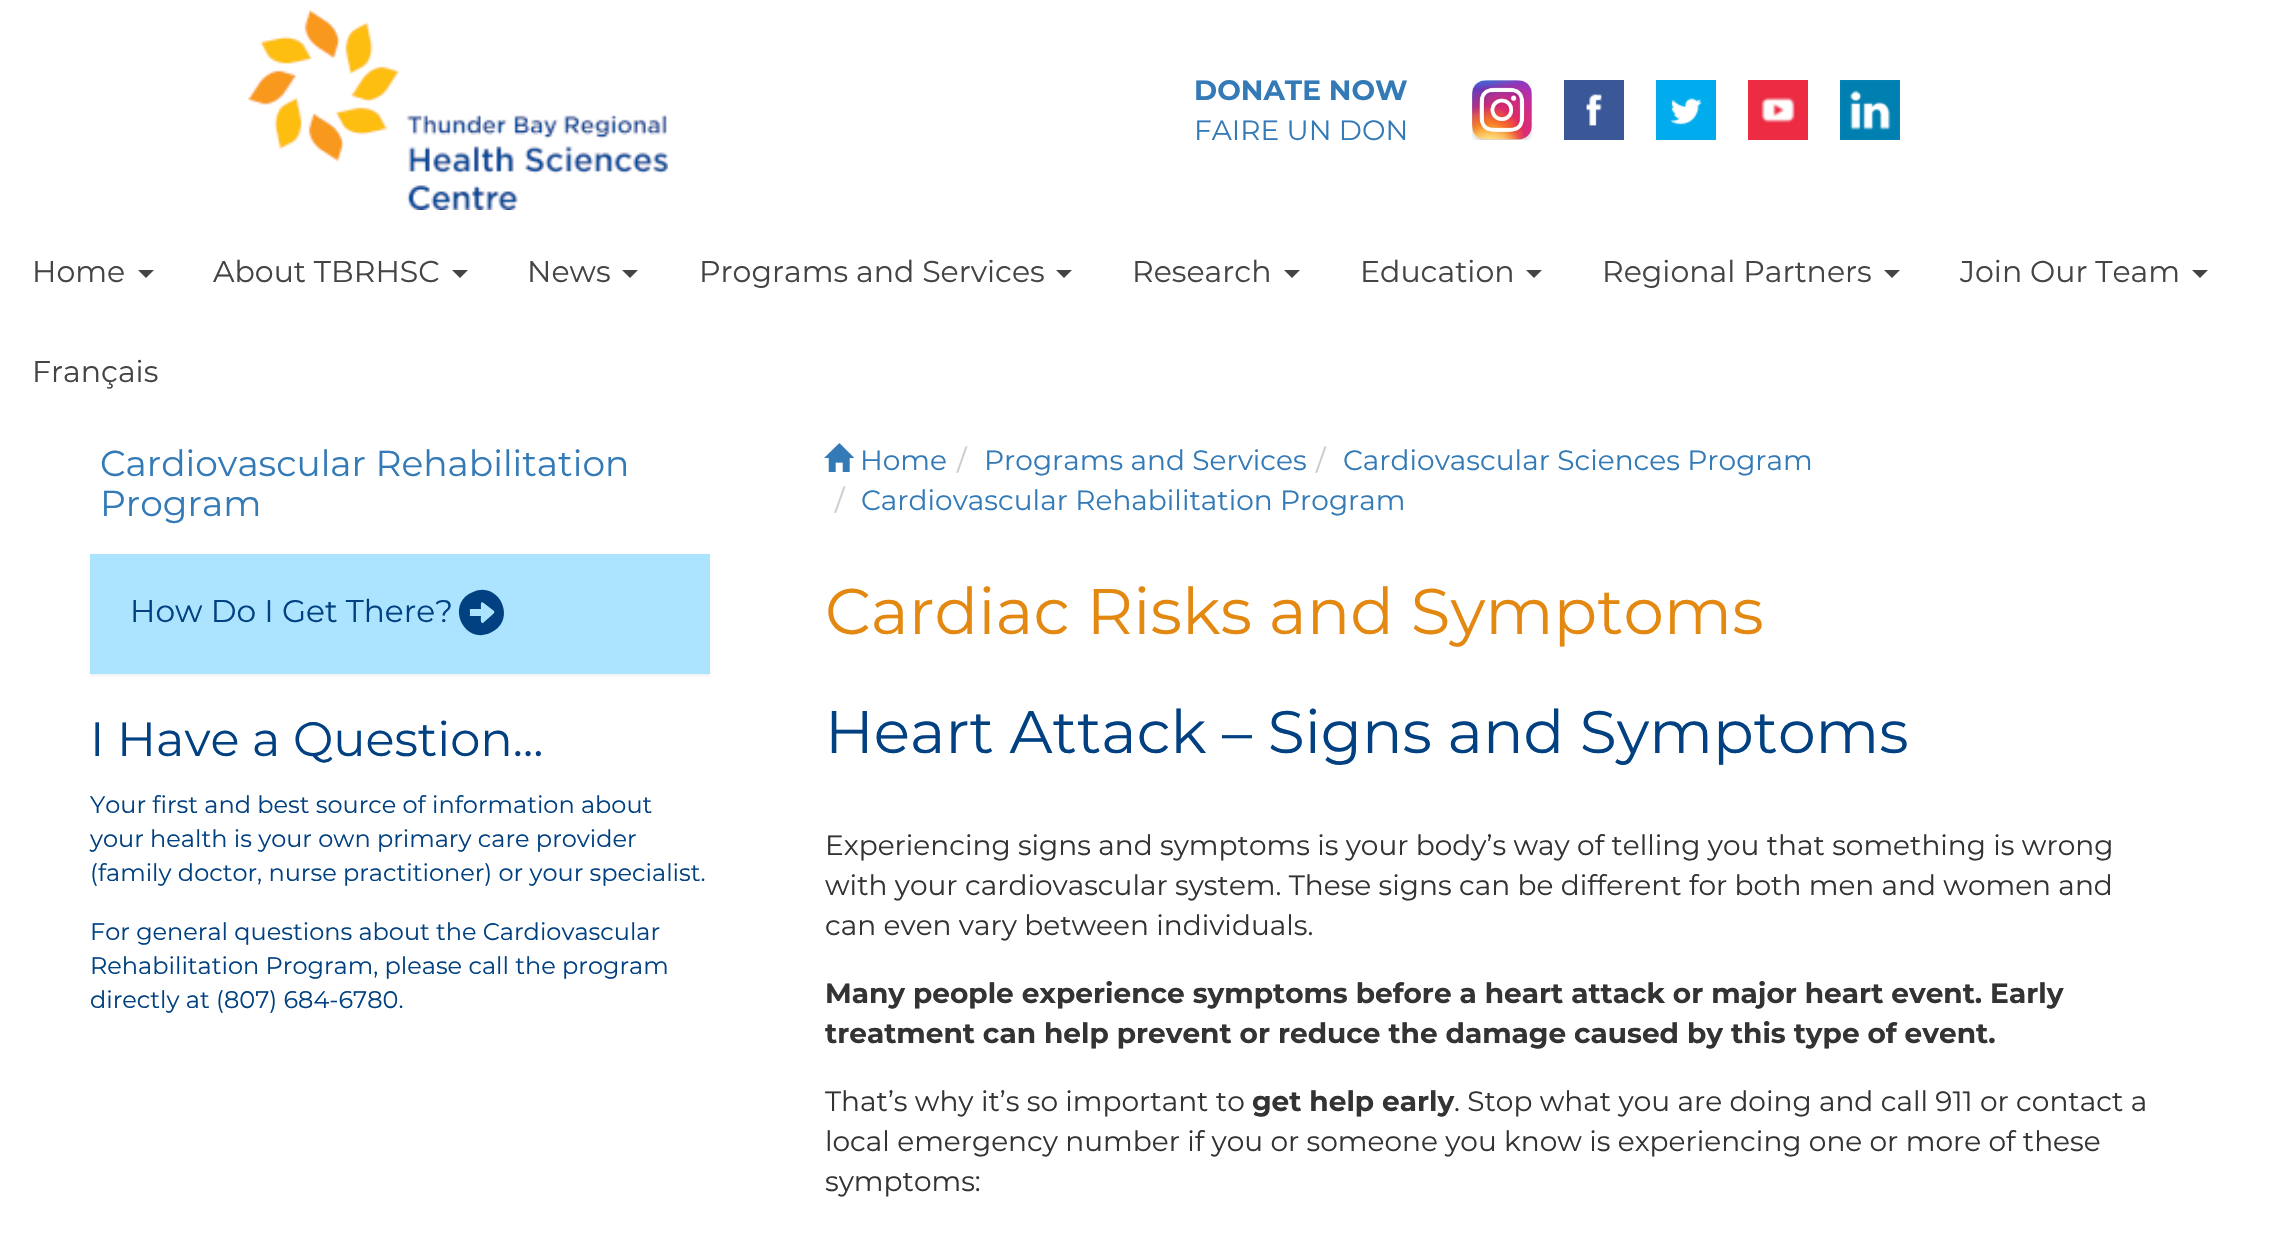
#include "include/core/SkBlurTypes.h"
#include "include/core/SkCanvas.h"
#include "include/core/SkData.h"
#include "include/core/SkFont.h"
#include "include/core/SkFontMgr.h"
#include "include/core/SkImage.h"
#include "include/core/SkMaskFilter.h"
#include "include/core/SkPaint.h"
#include "include/core/SkPathBuilder.h"
#include "include/core/SkTextBlob.h"
#include "include/effects/SkDashPathEffect.h"
#include "include/effects/SkGradientShader.h"
#include "include/utils/SkParsePath.h"

extern sk_sp<SkFontMgr> fontMgr;

static SkFont font(const char* family, int weight, float size, bool italic = false) {
    SkFontStyle style(weight, SkFontStyle::kNormal_Width,
        italic ? SkFontStyle::kItalic_Slant : SkFontStyle::kUpright_Slant);
    SkFont result(fontMgr->matchFamilyStyle(family, style), size);
    result.setSubpixel(true);
    return result;
}

static void drawLabel(SkCanvas* canvas, const char* s, float x, float y, const SkFont& font, SkColor color) {
    SkPaint ink(SkColor4f::FromColor(color));
    ink.setAntiAlias(true);
    canvas->drawString(s, x, y, font, ink);
}

static void fillRect(SkCanvas* canvas, float x, float y, float w, float h, SkColor color) {
    SkPaint ink(SkColor4f::FromColor(color));
    ink.setAntiAlias(true);
    canvas->drawRect(SkRect::MakeXYWH(x, y, w, h), ink);
}

static void drawPhoto(SkCanvas* canvas, const char* path, float x, float y, float w, float h) {
    auto image = SkImages::DeferredFromEncodedData(SkData::MakeFromFileName(path));
    canvas->drawImageRect(image, SkRect::MakeXYWH(x, y, w, h), SkSamplingOptions());
}

static SkPath parsePath(const char* data, bool evenOdd = false) {
    SkPath result = *SkParsePath::FromSVGString(data);
    if (evenOdd) result.setFillType(SkPathFillType::kEvenOdd);
    return result;
}

void draw(SkCanvas* canvas) {
    SkPaint paint;
    paint.setAntiAlias(true);
    canvas->clear(0xFFFFFFFF);
    drawPhoto(canvas, "assets/img1.png", 248, 10, 420, 200);
    SkFont font1 = font("Montserrat", 700, 28);
    drawLabel(canvas, "DONATE NOW", 1194, 100, font1, 0xFF337AB7);
    SkFont font2 = font("Montserrat", 400, 28);
    drawLabel(canvas, "FAIRE UN DON", 1194, 140, font2, 0xFF337AB7);
    drawPhoto(canvas, "assets/img2.png", 1472, 80, 60, 60);
    drawPhoto(canvas, "assets/img3.png", 1564, 80, 60, 60);
    drawPhoto(canvas, "assets/img4.png", 1656, 80, 60, 60);
    drawPhoto(canvas, "assets/img5.png", 1748, 80, 60, 60);
    drawPhoto(canvas, "assets/img6.png", 1840, 80, 60, 60);
    SkFont font3 = font("Montserrat", 400, 30);
    drawLabel(canvas, "Home", 32, 282, font3, 0xFF444444);
    paint.setColor(0xFF444444);
    canvas->drawPath(parsePath("M138 270H154L146 278Z"), paint);
    drawLabel(canvas, "About TBRHSC", 213, 282, font3, 0xFF444444);
    canvas->drawPath(parsePath("M452 270H468L460 278Z"), paint);
    drawLabel(canvas, "News", 527, 282, font3, 0xFF444444);
    canvas->drawPath(parsePath("M622 270H638L630 278Z"), paint);
    drawLabel(canvas, "Programs and Services", 699, 282, font3, 0xFF444444);
    canvas->drawPath(parsePath("M1056 270H1072L1064 278Z"), paint);
    drawLabel(canvas, "Research", 1132, 282, font3, 0xFF444444);
    canvas->drawPath(parsePath("M1284 270H1300L1292 278Z"), paint);
    drawLabel(canvas, "Education", 1360, 282, font3, 0xFF444444);
    canvas->drawPath(parsePath("M1526 270H1542L1534 278Z"), paint);
    drawLabel(canvas, "Regional Partners", 1602, 282, font3, 0xFF444444);
    canvas->drawPath(parsePath("M1884 270H1900L1892 278Z"), paint);
    drawLabel(canvas, "Join Our Team", 1960, 282, font3, 0xFF444444);
    canvas->drawPath(parsePath("M2192 270H2208L2200 278Z"), paint);
    drawLabel(canvas, "Français", 32, 382, font3, 0xFF444444);
    SkFont font4 = font("Montserrat", 400, 36);
    drawLabel(canvas, "Cardiovascular Rehabilitation", 100, 476, font4, 0xFF337AB7);
    drawLabel(canvas, "Program", 100, 516, font4, 0xFF337AB7);
    paint.setColor(0x0D000000);
    paint.setMaskFilter(SkMaskFilter::MakeBlur(kNormal_SkBlurStyle, 1));
    canvas->drawRect(SkRect::MakeXYWH(90, 556, 620, 120), paint);
    paint.setMaskFilter(nullptr);
    fillRect(canvas, 90, 554, 620, 120, 0xFFACE3FF);
    SkFont font5 = font("Montserrat", 400, 31.25f);
    drawLabel(canvas, "How Do I Get There?", 130, 622, font5, 0xFF014181);
    paint.setColor(0xFF014181);
    canvas->drawPath(parsePath("M473 592C500 580 518 622 490 633C463 645 445 603 473 592ZM494 611L485 604C480 600 481 604 481 609H472C469 609 470 609 470 613C470 616 469 616 472 616H481C481 617 480 624 483 623L492 615C493 614 495 613 494 611Z"), paint);
    SkFont font6 = font("Montserrat", 400, 48);
    drawLabel(canvas, "I Have a Question...", 90, 756, font6, 0xFF014181);
    SkFont font7 = font("Montserrat", 400, 24);
    drawLabel(canvas, "Your first and best source of information about", 90, 813, font7, 0xFF014181);
    drawLabel(canvas, "your health is your own primary care provider", 90, 847, font7, 0xFF014181);
    drawLabel(canvas, "(family doctor, nurse practitioner) or your specialist.", 90, 881, font7, 0xFF014181);
    drawLabel(canvas, "For general questions about the Cardiovascular", 90, 940, font7, 0xFF014181);
    drawLabel(canvas, "Rehabilitation Program, please call the program", 90, 974, font7, 0xFF014181);
    drawLabel(canvas, "directly at (807) 684-6780.", 90, 1008, font7, 0xFF014181);
    drawPhoto(canvas, "assets/img7.png", 824, 443, 30, 29);
    drawLabel(canvas, "Home", 860, 470, font2, 0xFF337AB7);
    drawLabel(canvas, "/", 957, 470, font2, 0xFFCCCCCC);
    drawLabel(canvas, "Programs and Services", 984, 470, font2, 0xFF337AB7);
    drawLabel(canvas, "/", 1316, 470, font2, 0xFFCCCCCC);
    drawLabel(canvas, "Cardiovascular Sciences Program", 1343, 470, font2, 0xFF337AB7);
    drawLabel(canvas, "/", 835, 510, font2, 0xFFCCCCCC);
    drawLabel(canvas, "Cardiovascular Rehabilitation Program", 861, 510, font2, 0xFF337AB7);
    SkFont font8 = font("Montserrat", 400, 64.4f);
    drawLabel(canvas, "Cardiac Risks and Symptoms", 825, 634, font8, 0xFFE38811);
    SkFont font9 = font("Montserrat", 400, 60);
    drawLabel(canvas, "Heart Attack – Signs and Symptoms", 825, 753, font9, 0xFF014181);
    drawLabel(canvas, "Experiencing signs and symptoms is your body’s way of telling you that something is wrong", 825, 855, font2, 0xFF333333);
    drawLabel(canvas, "with your cardiovascular system. These signs can be different for both men and women and", 825, 895, font2, 0xFF333333);
    drawLabel(canvas, "can even vary between individuals.", 825, 935, font2, 0xFF333333);
    drawLabel(canvas, "Many people experience symptoms before a heart attack or major heart event. Early", 825, 1003, font1, 0xFF333333);
    drawLabel(canvas, "treatment can help prevent or reduce the damage caused by this type of event.", 825, 1043, font1, 0xFF333333);
    drawLabel(canvas, "That’s why it’s so important to", 825, 1111, font2, 0xFF333333);
    drawLabel(canvas, "get help early", 1252, 1111, font1, 0xFF333333);
    drawLabel(canvas, ". Stop what you are doing and call 911 or contact a", 1454, 1111, font2, 0xFF333333);
    drawLabel(canvas, "local emergency number if you or someone you know is experiencing one or more of these", 825, 1151, font2, 0xFF333333);
    drawLabel(canvas, "symptoms:", 825, 1191, font2, 0xFF333333);
}
